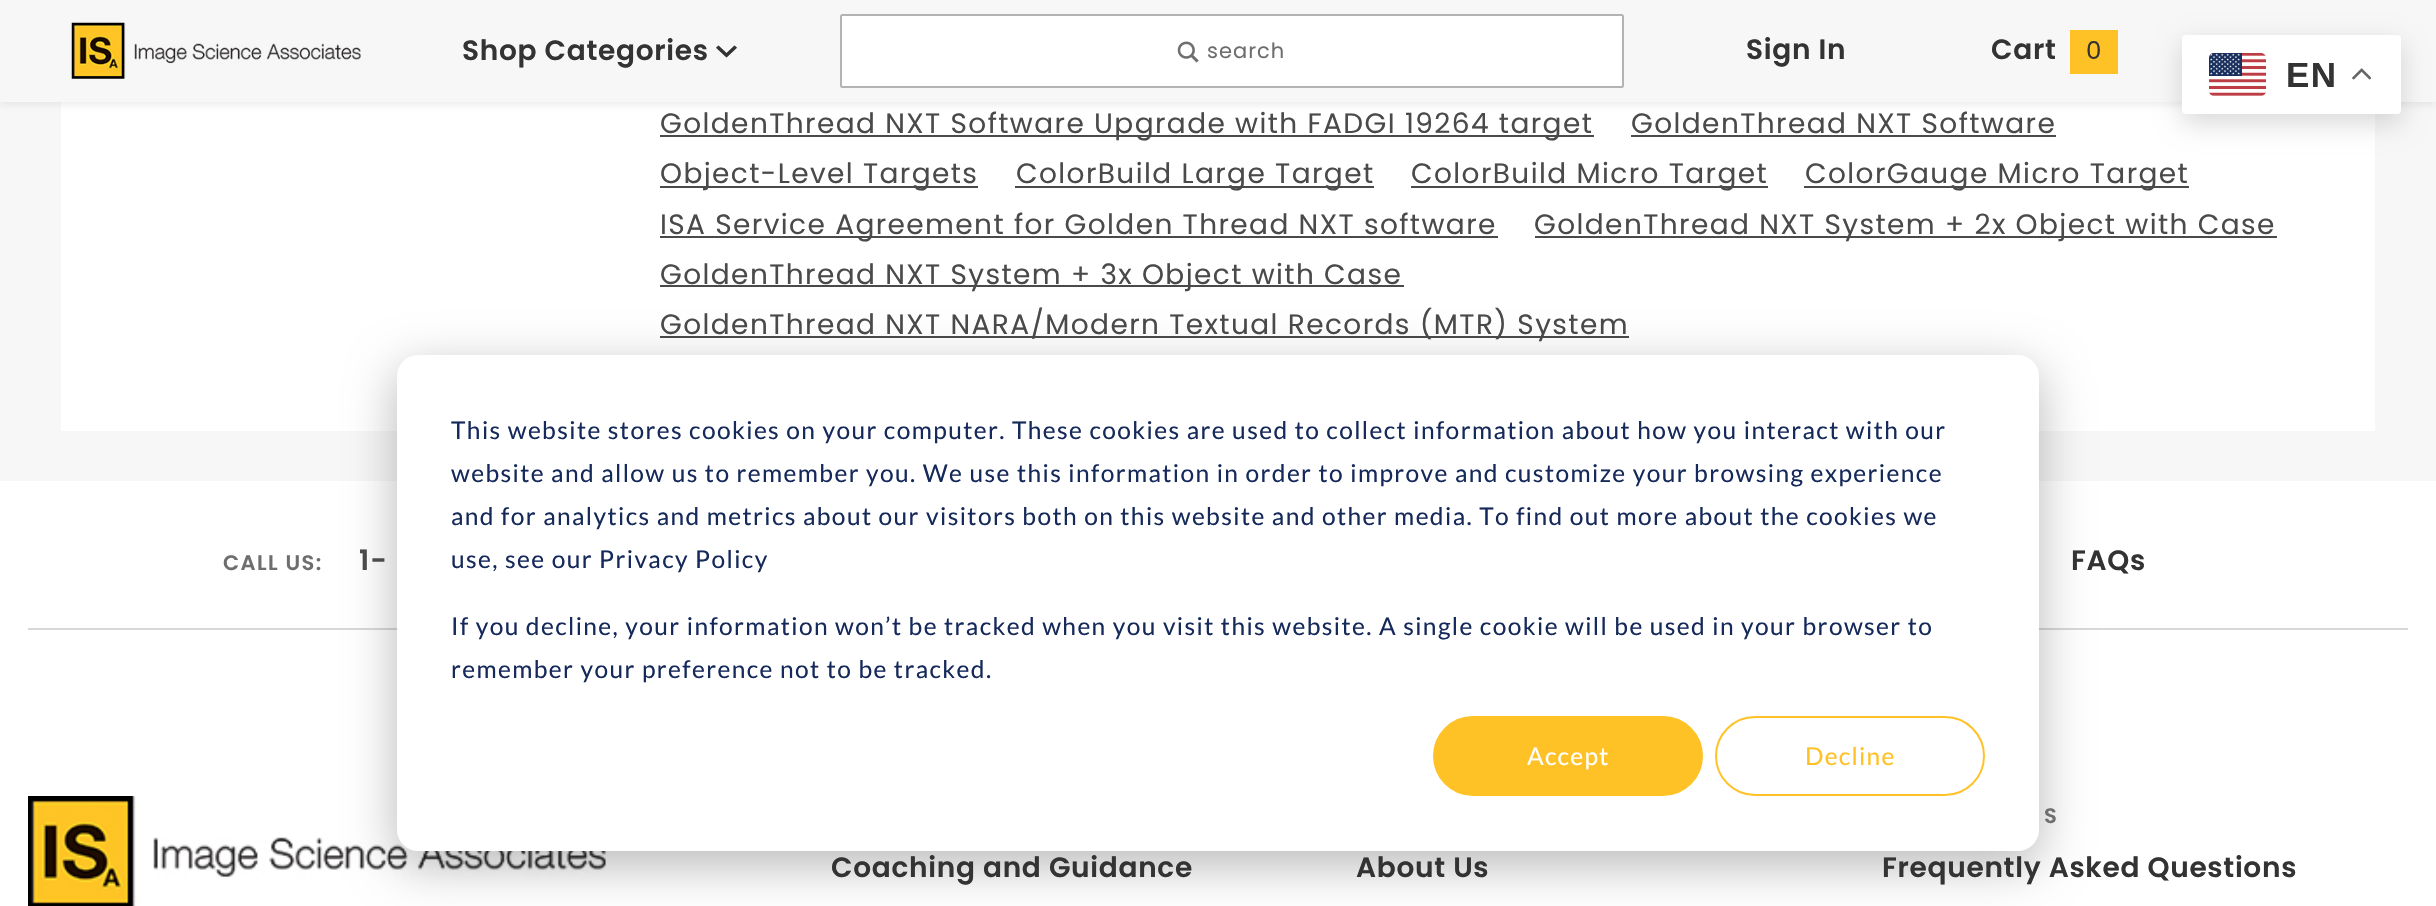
#include "include/core/SkBlurTypes.h"
#include "include/core/SkCanvas.h"
#include "include/core/SkData.h"
#include "include/core/SkFont.h"
#include "include/core/SkFontMgr.h"
#include "include/core/SkImage.h"
#include "include/core/SkMaskFilter.h"
#include "include/core/SkPaint.h"
#include "include/core/SkPathBuilder.h"
#include "include/core/SkTextBlob.h"
#include "include/effects/SkDashPathEffect.h"
#include "include/effects/SkGradientShader.h"
#include "include/utils/SkParsePath.h"

extern sk_sp<SkFontMgr> fontMgr;

static SkFont font(const char* family, int weight, float size, bool italic = false) {
    SkFontStyle style(weight, SkFontStyle::kNormal_Width,
        italic ? SkFontStyle::kItalic_Slant : SkFontStyle::kUpright_Slant);
    SkFont result(fontMgr->matchFamilyStyle(family, style), size);
    result.setSubpixel(true);
    return result;
}

static void drawTracked(SkCanvas* canvas, const char* s, float x, float y, const SkFont& font, const SkPaint& ink, float letter, float word) {
    std::vector<SkGlyphID> glyphs(font.countText(s, strlen(s), SkTextEncoding::kUTF8));
    std::vector<float> xs(glyphs.size());
    font.textToGlyphs(s, strlen(s), SkTextEncoding::kUTF8, glyphs);
    font.getXPos(glyphs, xs, x);
    float extra = 0;
    for (size_t i = 0; i < glyphs.size(); i++) {
        xs[i] += extra;
        extra += letter + word * (glyphs[i] == font.unicharToGlyph(' '));
    }
    canvas->drawTextBlob(SkTextBlob::MakeFromPosHGlyphs(glyphs, xs, y, font), 0, 0, ink);
}

static void fillRect(SkCanvas* canvas, float x, float y, float w, float h, SkColor color) {
    SkPaint ink(SkColor4f::FromColor(color));
    ink.setAntiAlias(true);
    canvas->drawRect(SkRect::MakeXYWH(x, y, w, h), ink);
}

static void fillRRect(SkCanvas* canvas, float x, float y, float w, float h, float radius, SkColor color) {
    SkPaint ink(SkColor4f::FromColor(color));
    ink.setAntiAlias(true);
    canvas->drawRoundRect(SkRect::MakeXYWH(x, y, w, h), radius, radius, ink);
}

static void drawPhoto(SkCanvas* canvas, const char* path, float x, float y, float w, float h) {
    auto image = SkImages::DeferredFromEncodedData(SkData::MakeFromFileName(path));
    canvas->drawImageRect(image, SkRect::MakeXYWH(x, y, w, h), SkSamplingOptions());
}

void draw(SkCanvas* canvas) {
    SkPaint paint;
    paint.setAntiAlias(true);
    canvas->clear(0xFFF7F7F7);
    fillRect(canvas, 61, 102, 2314, 329, 0xFFFFFFFF);
    paint.setColor(0x26808080);
    paint.setMaskFilter(SkMaskFilter::MakeBlur(kNormal_SkBlurStyle, 3.5f));
    canvas->drawRect(SkRect::MakeXYWH(0, 4, 2436, 101), paint);
    paint.setMaskFilter(nullptr);
    fillRect(canvas, 0, 0, 2436, 102, 0xFFF7F7F7);
    drawPhoto(canvas, "assets/img1.png", 71, 22, 290, 57);
    SkFont font1 = font("Poppins", 600, 28);
    paint.setColor(0xFF333333);
    drawTracked(canvas, "Shop Categories", 462, 60, font1, paint, 0.7f, 0);
    SkFont font2 = font("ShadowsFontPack", 400, 21);
    drawTracked(canvas, "1", 716, 60, font2, paint, 0.7f, 0);
    paint.setColor(0xFFFFFFFF);
    canvas->drawRoundRect(SkRect::MakeXYWH(841, 15, 782, 72), 1.5f, 1.5f, paint);
    paint.setStroke(true);
    paint.setStrokeWidth(2);
    paint.setColor(0xFFB3B3B3);
    canvas->drawRoundRect(SkRect::MakeXYWH(841, 15, 782, 72), 1.5f, 1.5f, paint);
    drawPhoto(canvas, "assets/img2.png", 1177, 41, 22, 22);
    SkFont font3 = font("Poppins", 400, 21);
    paint.setStroke(false);
    paint.setColor(0xFF6E6E6E);
    drawTracked(canvas, "search", 1207, 58, font3, paint, 1, 0);
    paint.setColor(0xFF333333);
    drawTracked(canvas, "Sign In", 1746, 59, font1, paint, 0.7f, 0);
    drawTracked(canvas, "Cart", 1991, 59, font1, paint, 0.7f, 0);
    fillRect(canvas, 2070, 30, 48, 44, 0xFFFFC226);
    SkFont font4 = font("Poppins", 400, 24.5f);
    drawTracked(canvas, "0", 2086, 59, font4, paint, 0.7f, 0);
    paint.setColor(0x26000000);
    paint.setMaskFilter(SkMaskFilter::MakeBlur(kNormal_SkBlurStyle, 13));
    canvas->drawRoundRect(SkRect::MakeXYWH(2182, 44, 219, 79), 4, 4, paint);
    paint.setMaskFilter(nullptr);
    fillRRect(canvas, 2182, 35, 219, 79, 4, 0xFFFFFFFF);
    drawPhoto(canvas, "assets/img3.png", 2209, 53, 57, 43);
    SkFont font5 = font("Liberation Sans", 700, 35);
    paint.setColor(0xFF333333);
    drawTracked(canvas, "EN", 2286, 87, font5, paint, 1.4f, 0);
    drawPhoto(canvas, "assets/img4.png", 2352, 68, 19, 12);
    fillRect(canvas, 660, 135, 934, 2, 0xFF4A4A4A);
    SkFont font6 = font("Poppins", 400, 28);
    paint.setColor(0xFF4A4A4A);
    drawTracked(canvas, "GoldenThread NXT Software Upgrade with FADGI 19264 target", 660, 133, font6, paint, 1.4f, 0);
    drawTracked(canvas, "GoldenThread NXT Software", 1631, 133, font6, paint, 1.4f, 0);
    fillRect(canvas, 1631, 135, 425, 2, 0xFF4A4A4A);
    fillRect(canvas, 660, 186, 318, 2, 0xFF4A4A4A);
    drawTracked(canvas, "Object-Level Targets", 660, 183, font6, paint, 1.4f, 0);
    fillRect(canvas, 1015, 186, 359, 2, 0xFF4A4A4A);
    drawTracked(canvas, "ColorBuild Large Target", 1016, 183, font6, paint, 1.4f, 0);
    fillRect(canvas, 1411, 186, 357, 2, 0xFF4A4A4A);
    drawTracked(canvas, "ColorBuild Micro Target", 1411, 183, font6, paint, 1.4f, 0);
    fillRect(canvas, 1804, 186, 385, 2, 0xFF4A4A4A);
    drawTracked(canvas, "ColorGauge Micro Target", 1805, 183, font6, paint, 1.4f, 0);
    fillRect(canvas, 660, 236, 838, 2, 0xFF4A4A4A);
    drawTracked(canvas, "ISA Service Agreement for Golden Thread NXT software", 660, 234, font6, paint, 1.4f, 0);
    fillRect(canvas, 1535, 236, 742, 2, 0xFF4A4A4A);
    drawTracked(canvas, "GoldenThread NXT System + 2x Object with Case", 1534, 234, font6, paint, 1.4f, 0);
    fillRect(canvas, 660, 285, 744, 2, 0xFF4A4A4A);
    drawTracked(canvas, "GoldenThread NXT System + 3x Object with Case", 660, 284, font6, paint, 1.4f, 0);
    fillRect(canvas, 660, 336, 969, 2, 0xFF4A4A4A);
    drawTracked(canvas, "GoldenThread NXT NARA/Modern Textual Records (MTR) System", 660, 334, font6, paint, 1.4f, 0);
    fillRect(canvas, 0, 481, 2436, 425, 0xFFFFFFFF);
    fillRect(canvas, 28, 628, 2380, 2, 0xFFD8D8D8);
    drawPhoto(canvas, "assets/img5.png", 28, 796, 578, 110);
    paint.setColor(0x47000000);
    paint.setMaskFilter(SkMaskFilter::MakeBlur(kNormal_SkBlurStyle, 24.5f));
    canvas->drawRoundRect(SkRect::MakeXYWH(397, 369, 1642, 496), 21, 21, paint);
    paint.setMaskFilter(nullptr);
    fillRRect(canvas, 397, 355, 1642, 496, 21, 0xFFFFFFFF);
    SkFont font7 = font("Lato", 400, 24.5f);
    paint.setColor(0xFF15295A);
    drawTracked(canvas, "This website stores cookies on your computer. These cookies are used to collect information about how you interact with our", 451, 439, font7, paint, 1.4f, 0);
    drawTracked(canvas, "website and allow us to remember you. We use this information in order to improve and customize your browsing experience", 451, 482, font7, paint, 1.4f, 0);
    drawTracked(canvas, "and for analytics and metrics about our visitors both on this website and other media. To find out more about the cookies we", 451, 525, font7, paint, 1.4f, 0);
    drawTracked(canvas, "use, see our Privacy Policy", 451, 568, font7, paint, 1.4f, 0);
    drawTracked(canvas, "If you decline, your information won’t be tracked when you visit this website. A single cookie will be used in your browser to", 451, 635, font7, paint, 1.4f, 0);
    drawTracked(canvas, "remember your preference not to be tracked.", 451, 678, font7, paint, 1.4f, 0);
    paint.setColor(0xFFFFC226);
    canvas->drawRoundRect(SkRect::MakeXYWH(1434, 717, 268, 78), 39, 39, paint);
    paint.setStroke(true);
    canvas->drawRoundRect(SkRect::MakeXYWH(1434, 717, 268, 78), 39, 39, paint);
    paint.setStroke(false);
    paint.setColor(0xFFFFFFFF);
    drawTracked(canvas, "Accept", 1527, 765, font7, paint, 1.25f, 0);
    paint.setStroke(true);
    paint.setColor(0xFFFFC226);
    canvas->drawRoundRect(SkRect::MakeXYWH(1716, 717, 268, 78), 39, 39, paint);
    paint.setStroke(false);
    drawTracked(canvas, "Decline", 1805, 765, font7, paint, 1.25f, 0);
    SkFont font8 = font("Poppins", 600, 21);
    paint.setColor(0xFF6E6E6E);
    drawTracked(canvas, "CALL US:", 223, 570, font8, paint, 1.4f, 0);
    paint.setColor(0xFF4A4A4A);
    drawTracked(canvas, "1-", 359, 570, font1, paint, 1.4f, 0);
    paint.setColor(0xFF333333);
    drawTracked(canvas, "FAQs", 2071, 570, font1, paint, 0.7f, 0);
    drawTracked(canvas, "Coaching and Guidance", 831, 877, font1, paint, 0.7f, 0);
    drawTracked(canvas, "About Us", 1356, 877, font1, paint, 0.7f, 0);
    paint.setColor(0xFF6E6E6E);
    drawTracked(canvas, "S", 2044, 823, font8, paint, 1.4f, 0);
    paint.setColor(0xFF333333);
    drawTracked(canvas, "Frequently Asked Questions", 1882, 877, font1, paint, 0.7f, 0);
}
